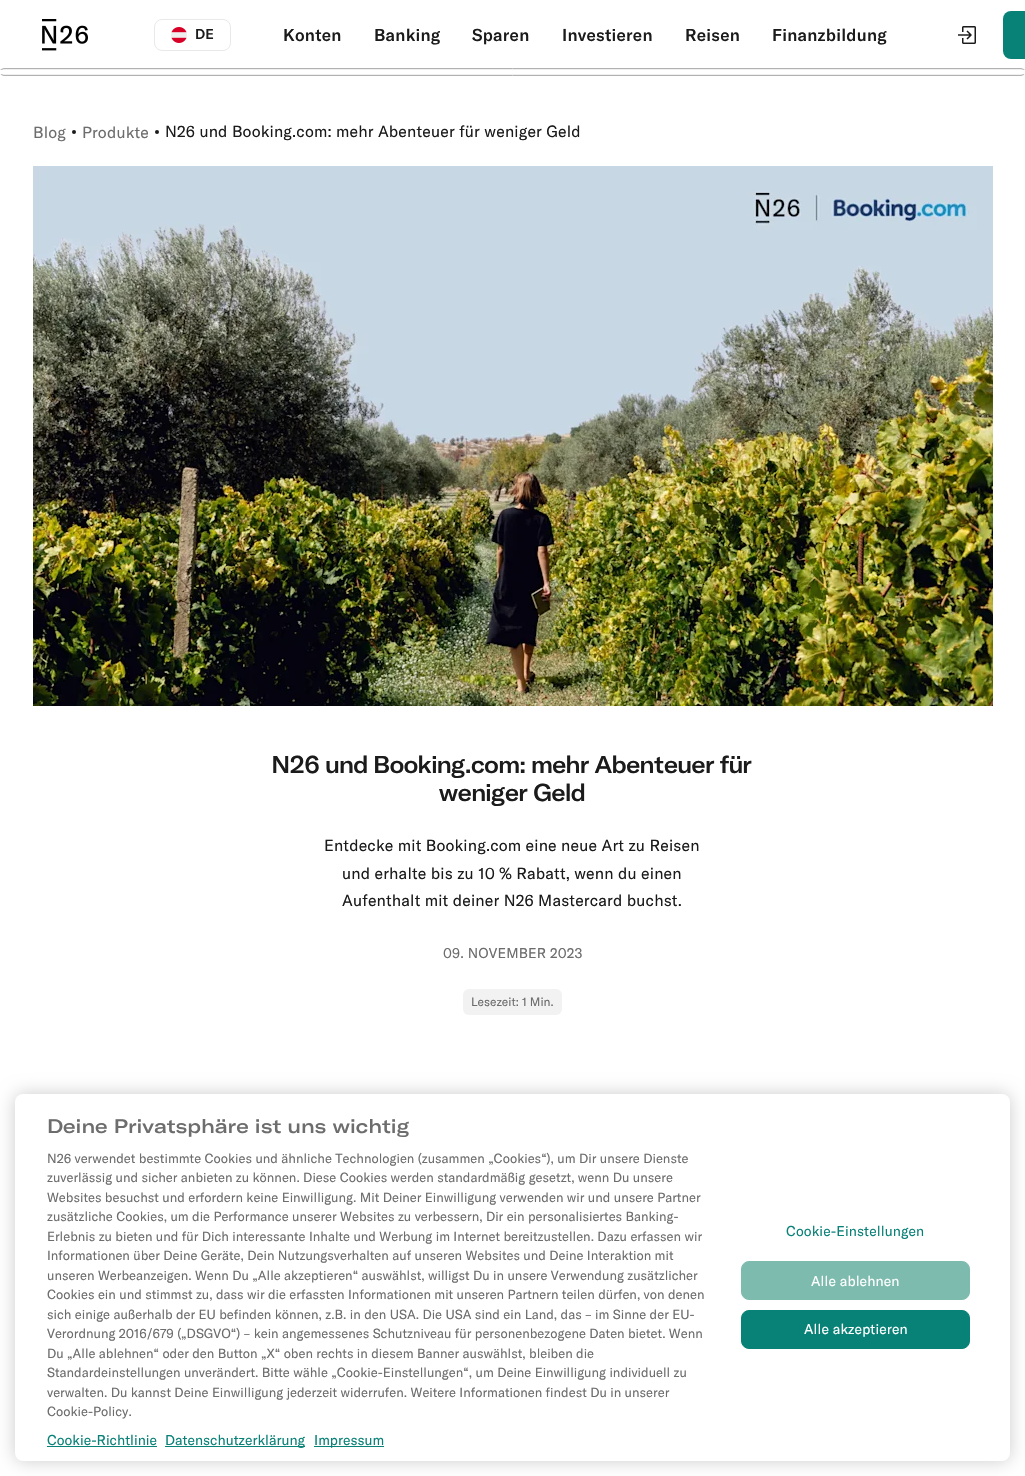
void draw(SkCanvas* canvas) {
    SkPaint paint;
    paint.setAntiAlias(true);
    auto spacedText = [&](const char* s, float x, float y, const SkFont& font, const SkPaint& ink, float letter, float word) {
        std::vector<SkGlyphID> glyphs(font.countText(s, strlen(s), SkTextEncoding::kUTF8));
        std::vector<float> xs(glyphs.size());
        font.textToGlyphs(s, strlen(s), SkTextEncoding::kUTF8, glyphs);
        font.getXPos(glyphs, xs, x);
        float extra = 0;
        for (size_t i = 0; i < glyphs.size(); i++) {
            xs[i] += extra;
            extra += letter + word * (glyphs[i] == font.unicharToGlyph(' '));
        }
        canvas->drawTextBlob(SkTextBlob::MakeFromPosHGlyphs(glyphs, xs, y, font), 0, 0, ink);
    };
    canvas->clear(0xFFFFFFFF);
    paint.setColor(0xFFE9E9E9);
    canvas->drawRect(SkRect::MakeXYWH(0, 69, 1025, 1), paint);
    canvas->drawImageRect(SkImages::DeferredFromEncodedData(SkData::MakeFromFileName("img1.png")), SkRect::MakeXYWH(42, 19, 46, 32), SkSamplingOptions());
    paint.setStyle(SkPaint::kStroke_Style);
    paint.setStrokeWidth(1);
    canvas->drawRoundRect(SkRect::MakeXYWH(154.5f, 19.5f, 76, 31), 7.5f, 7.5f, paint);
    canvas->drawImageRect(SkImages::DeferredFromEncodedData(SkData::MakeFromFileName("img2.png")), SkRect::MakeXYWH(171, 27, 16, 16), SkSamplingOptions());
    SkFont font1(fontMgr->matchFamilyStyle("GT America", SkFontStyle(500, SkFontStyle::kNormal_Width, SkFontStyle::kUpright_Slant)), 14);
    font1.setSubpixel(true);
    paint.setStyle(SkPaint::kFill_Style);
    paint.setColor(0xFF1B1B1B);
    canvas->drawString("DE", 195, 39, font1, paint);
    SkFont font2(fontMgr->matchFamilyStyle("GT America", SkFontStyle(500, SkFontStyle::kNormal_Width, SkFontStyle::kUpright_Slant)), 17);
    font2.setSubpixel(true);
    spacedText("Konten", 283, 41, font2, paint, 0.25f, 0);
    spacedText("Banking", 374, 41, font2, paint, 0.25f, 0);
    spacedText("Sparen", 472, 41, font2, paint, 0.25f, 0);
    spacedText("Investieren", 562, 41, font2, paint, 0.25f, 0);
    spacedText("Reisen", 685, 41, font2, paint, 0.25f, 0);
    spacedText("Finanzbildung", 772, 41, font2, paint, 0.25f, 0);
    canvas->drawImageRect(SkImages::DeferredFromEncodedData(SkData::MakeFromFileName("img3.png")), SkRect::MakeXYWH(958, 26, 18, 18), SkSamplingOptions());
    paint.setColor(0xFF088177);
    canvas->drawRoundRect(SkRect::MakeXYWH(1003, 11, 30, 48), 8, 8, paint);
    paint.setColor(0xFFEFEFEF);
    canvas->drawRoundRect(SkRect::MakeXYWH(0.5f, 68.5f, 1024, 7), 3.5f, 3.5f, paint);
    paint.setStyle(SkPaint::kStroke_Style);
    paint.setColor(0xFFB2B2B2);
    canvas->drawRoundRect(SkRect::MakeXYWH(0.5f, 68.5f, 1024, 7), 3.5f, 3.5f, paint);
    paint.setStyle(SkPaint::kFill_Style);
    paint.setColor(0xFFFFFFFF);
    canvas->drawRect(SkRect::MakeXYWH(0, 70, 1025, 4), paint);
    SkFont font3(fontMgr->matchFamilyStyle("GT America", SkFontStyle::Normal()), 16);
    font3.setSubpixel(true);
    paint.setColor(0xFF6D6D6D);
    spacedText("Blog", 33, 138, font3, paint, 0.15f, 0);
    paint.setColor(0xFF1B1B1B);
    canvas->drawCircle(74, 132, 2, paint);
    paint.setColor(0xFF6D6D6D);
    spacedText("Produkte", 82, 138, font3, paint, 0.15f, 0);
    paint.setColor(0xFF1B1B1B);
    canvas->drawCircle(157, 132, 2, paint);
    spacedText("N26 und Booking.com: mehr Abenteuer für weniger Geld", 165, 137, font3, paint, 0.15f, 0);
    canvas->drawImageRect(SkImages::DeferredFromEncodedData(SkData::MakeFromFileName("img4.png")), SkRect::MakeXYWH(33, 166, 960, 540), SkSamplingOptions());
    SkFont font4(fontMgr->matchFamilyStyle("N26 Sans", SkFontStyle(500, SkFontStyle::kNormal_Width, SkFontStyle::kUpright_Slant)), 24);
    font4.setSubpixel(true);
    spacedText("N26 und Booking.com: mehr Abenteuer für", 272, 773, font4, paint, 0.15f, 0);
    spacedText("weniger Geld", 439, 801, font4, paint, 0.15f, 0);
    spacedText("Entdecke mit Booking.com eine neue Art zu Reisen", 324, 851, font3, paint, 0.15f, 0);
    spacedText("und erhalte bis zu 10 % Rabatt, wenn du einen", 342, 879, font3, paint, 0.15f, 0);
    spacedText("Aufenthalt mit deiner N26 Mastercard buchst.", 342, 906, font3, paint, 0.15f, 0);
    SkFont font5(fontMgr->matchFamilyStyle("GT America", SkFontStyle::Normal()), 14);
    font5.setSubpixel(true);
    paint.setColor(0xFF6D6D6D);
    spacedText("09. NOVEMBER 2023", 443, 958, font5, paint, 0.15f, 0);
    paint.setColor(0xFFF2F2F2);
    canvas->drawRoundRect(SkRect::MakeXYWH(463, 989, 99, 26), 6, 6, paint);
    SkFont font6(fontMgr->matchFamilyStyle("GT America", SkFontStyle::Normal()), 12);
    font6.setSubpixel(true);
    paint.setColor(0xFF6D6D6D);
    canvas->drawString("Lesezeit: 1 Min.", 471, 1006, font6, paint);
    paint.setColor(0x33000000);
    paint.setMaskFilter(SkMaskFilter::MakeBlur(kNormal_SkBlurStyle, 9));
    canvas->drawRoundRect(SkRect::MakeXYWH(15, 1094, 995, 367), 8, 8, paint);
    paint.setMaskFilter(nullptr);
    paint.setColor(0xFFFFFFFF);
    canvas->drawRoundRect(SkRect::MakeXYWH(15, 1094, 995, 367), 8, 8, paint);
    SkFont font7(fontMgr->matchFamilyStyle("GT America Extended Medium", SkFontStyle(500, SkFontStyle::kNormal_Width, SkFontStyle::kUpright_Slant)), 19.25f);
    font7.setSubpixel(true);
    paint.setColor(0xFF6D6D6D);
    canvas->drawString("Deine Privatsphäre ist uns wichtig", 47, 1133, font7, paint);
    SkFont font8(fontMgr->matchFamilyStyle("GT America", SkFontStyle::Normal()), 13);
    font8.setSubpixel(true);
    canvas->drawString("N26 verwendet bestimmte Cookies und ähnliche Technologien (zusammen „Cookies“), um Dir unsere Dienste", 47, 1163, font8, paint);
    canvas->drawString("zuverlässig und sicher anbieten zu können. Diese Cookies werden standardmäßig gesetzt, wenn Du unsere", 47, 1182, font8, paint);
    canvas->drawString("Websites besuchst und erfordern keine Einwilligung. Mit Deiner Einwilligung verwenden wir und unsere Partner", 47, 1202, font8, paint);
    canvas->drawString("zusätzliche Cookies, um die Performance unserer Websites zu verbessern, Dir ein personalisiertes Banking-", 47, 1221, font8, paint);
    canvas->drawString("Erlebnis zu bieten und für Dich interessante Inhalte und Werbung im Internet bereitzustellen. Dazu erfassen wir", 47, 1241, font8, paint);
    canvas->drawString("Informationen über Deine Geräte, Dein Nutzungsverhalten auf unseren Websites und Deine Interaktion mit", 47, 1260, font8, paint);
    canvas->drawString("unseren Werbeanzeigen. Wenn Du „Alle akzeptieren“ auswählst, willigst Du in unsere Verwendung zusätzlicher", 47, 1280, font8, paint);
    canvas->drawString("Cookies ein und stimmst zu, dass wir die erfassten Informationen mit unseren Partnern teilen dürfen, von denen", 47, 1299, font8, paint);
    canvas->drawString("sich einige außerhalb der EU befinden können, z.B. in den USA. Die USA sind ein Land, das – im Sinne der EU-", 47, 1319, font8, paint);
    canvas->drawString("Verordnung 2016/679 („DSGVO“) – kein angemessenes Schutzniveau für personenbezogene Daten bietet. Wenn", 47, 1338, font8, paint);
    canvas->drawString("Du „Alle ablehnen“ oder den Button „X“ oben rechts in diesem Banner auswählst, bleiben die", 47, 1358, font8, paint);
    canvas->drawString("Standardeinstellungen unverändert. Bitte wähle „Cookie-Einstellungen“, um Deine Einwilligung individuell zu", 47, 1377, font8, paint);
    canvas->drawString("verwalten. Du kannst Deine Einwilligung jederzeit widerrufen. Weitere Informationen findest Du in unserer", 47, 1397, font8, paint);
    canvas->drawString("Cookie-Policy.", 47, 1416, font8, paint);
    paint.setColor(0xFF088177);
    canvas->drawString("Cookie-Richtlinie", 47, 1445, font5, paint);
    canvas->drawRect(SkRect::MakeXYWH(47, 1446, 110, 1), paint);
    canvas->drawRect(SkRect::MakeXYWH(165, 1446, 140, 1), paint);
    canvas->drawString("Datenschutzerklärung", 165, 1445, font5, paint);
    canvas->drawRect(SkRect::MakeXYWH(314, 1446, 70, 1), paint);
    canvas->drawString("Impressum", 314, 1445, font5, paint);
    spacedText("Cookie-Einstellungen", 786, 1236, font5, paint, 0.1f, 0);
    paint.setColor(0xFF7EBBAF);
    canvas->drawRoundRect(SkRect::MakeXYWH(741.5f, 1261.5f, 228, 38), 7.5f, 7.5f, paint);
    paint.setStyle(SkPaint::kStroke_Style);
    canvas->drawRoundRect(SkRect::MakeXYWH(741.5f, 1261.5f, 228, 38), 7.5f, 7.5f, paint);
    paint.setStyle(SkPaint::kFill_Style);
    paint.setColor(0xFFFFFFFF);
    spacedText("Alle ablehnen", 811, 1286, font5, paint, 0.1f, 0);
    paint.setColor(0xFF088177);
    canvas->drawRoundRect(SkRect::MakeXYWH(741.5f, 1310.5f, 228, 38), 7.5f, 7.5f, paint);
    paint.setStyle(SkPaint::kStroke_Style);
    canvas->drawRoundRect(SkRect::MakeXYWH(741.5f, 1310.5f, 228, 38), 7.5f, 7.5f, paint);
    paint.setStyle(SkPaint::kFill_Style);
    paint.setColor(0xFFFFFFFF);
    spacedText("Alle akzeptieren", 804, 1334, font5, paint, 0.1f, 0);
}
